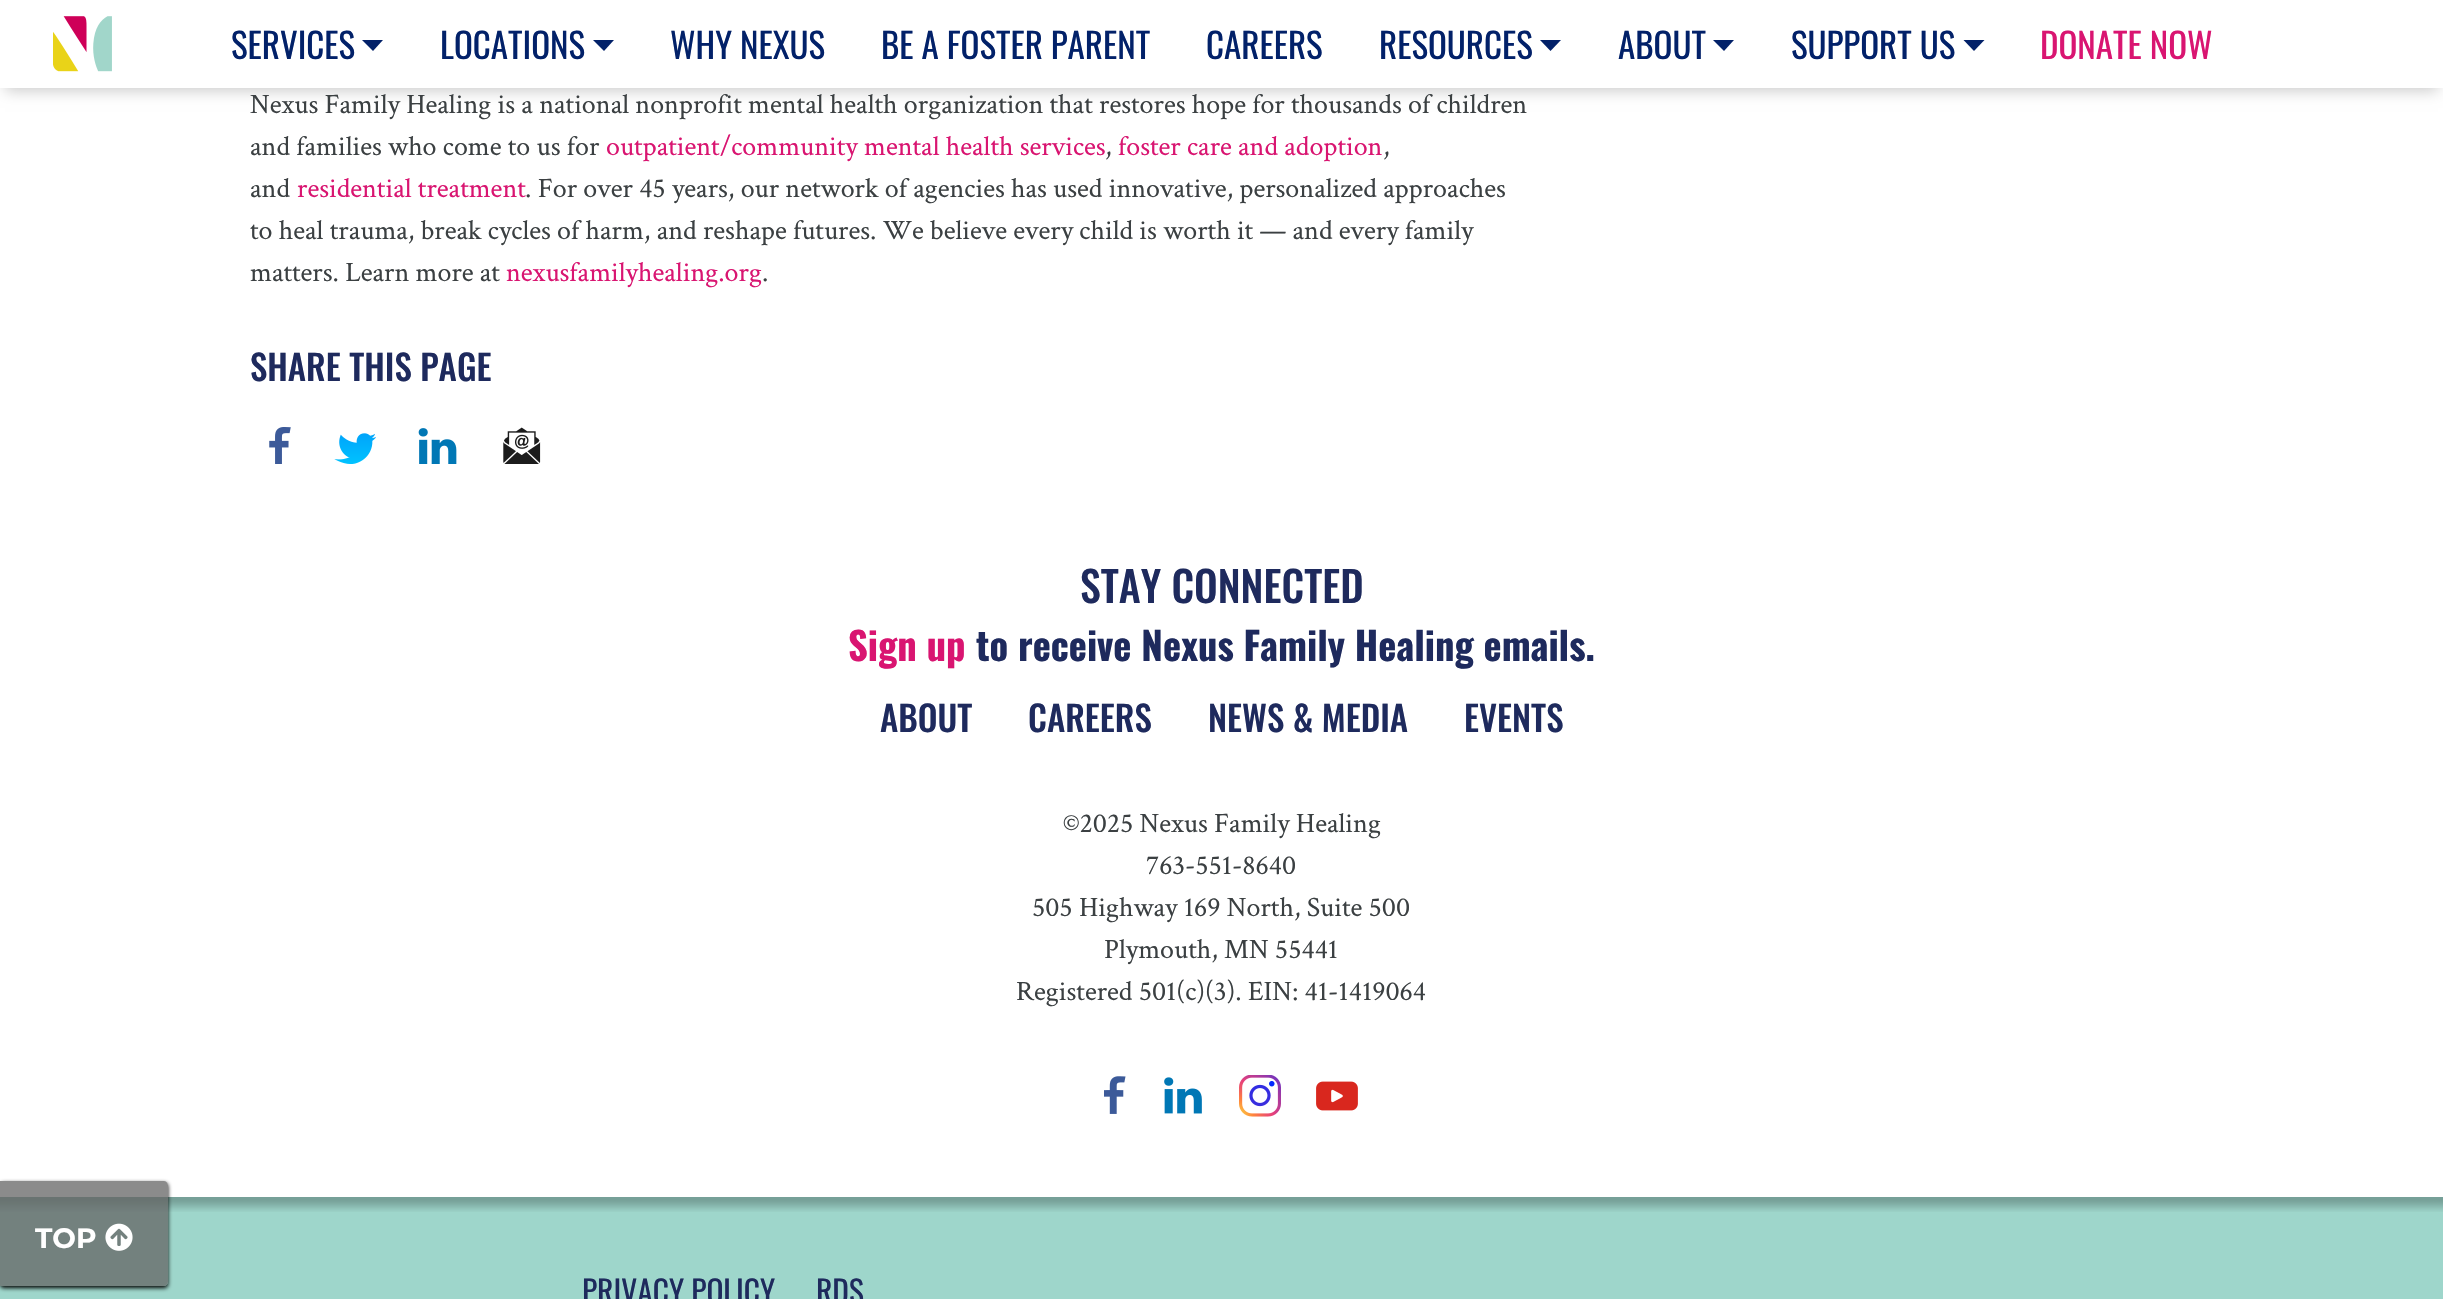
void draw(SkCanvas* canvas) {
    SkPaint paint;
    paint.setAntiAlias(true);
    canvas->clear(0xFF9ED6CB);
    paint.setColor(0xFFFFFFFF);
    canvas->drawRect(SkRect::MakeXYWH(0, 88, 2443, 1109), paint);
    canvas->drawImageRect(SkImages::DeferredFromEncodedData(SkData::MakeFromFileName("img11.png")), SkRect::MakeXYWH(0, 1197, 2443, 15), SkSamplingOptions());
    canvas->save();
    canvas->clipPath(SkPathBuilder(SkPathFillType::kEvenOdd).moveTo(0, 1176).lineTo(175, 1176).lineTo(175, 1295).lineTo(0, 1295).close().moveTo(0, 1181).lineTo(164, 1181).cubicTo(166, 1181, 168, 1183, 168, 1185).lineTo(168, 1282).cubicTo(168, 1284, 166, 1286, 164, 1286).lineTo(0, 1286).close().detach(), true);
    paint.setColor(0xFF000000);
    paint.setMaskFilter(SkMaskFilter::MakeBlur(kNormal_SkBlurStyle, 2));
    canvas->drawRoundRect(SkRect::MakeXYWH(0, 1183, 168, 105), 4, 4, paint);
    paint.setMaskFilter(nullptr);
    canvas->restore();
    paint.setColor(0xBF646464);
    canvas->drawPath(SkPathBuilder().moveTo(0, 1181).lineTo(164, 1181).cubicTo(166, 1181, 168, 1183, 168, 1185).lineTo(168, 1282).cubicTo(168, 1284, 166, 1286, 164, 1286).lineTo(0, 1286).close().detach(), paint);
    SkFont font1(fontMgr->matchFamilyStyle("Montserrat", SkFontStyle::Bold()), 28);
    font1.setSubpixel(true);
    paint.setColor(0xFFFFFFFF);
    canvas->drawString("TOP", 35, 1248, font1, paint);
    canvas->drawImageRect(SkImages::DeferredFromEncodedData(SkData::MakeFromFileName("img1.png")), SkRect::MakeXYWH(105, 1223, 28, 28), SkSamplingOptions());
    paint.setColor(0x33000000);
    paint.setMaskFilter(SkMaskFilter::MakeBlur(kNormal_SkBlurStyle, 7));
    canvas->drawRect(SkRect::MakeXYWH(5, 14, 2433, 77), paint);
    paint.setMaskFilter(nullptr);
    paint.setColor(0xFFFFFFFF);
    canvas->drawRect(SkRect::MakeXYWH(0, 0, 2443, 88), paint);
    canvas->drawImageRect(SkImages::DeferredFromEncodedData(SkData::MakeFromFileName("img2.png")), SkRect::MakeXYWH(53, 16, 59, 56), SkSamplingOptions());
    SkFont font2(fontMgr->matchFamilyStyle("Oswald", SkFontStyle::Normal()), 35);
    font2.setSubpixel(true);
    paint.setColor(0xFF022169);
    canvas->drawString("SERVICES", 231, 59, font2, paint);
    canvas->drawPath(SkPathBuilder().moveTo(362, 40).lineTo(383, 40).lineTo(373, 51).close().detach(), paint);
    canvas->drawString("LOCATIONS", 440, 59, font2, paint);
    canvas->drawPath(SkPathBuilder().moveTo(593, 40).lineTo(614, 40).lineTo(604, 51).close().detach(), paint);
    canvas->drawString("WHY NEXUS", 670, 59, font2, paint);
    canvas->drawString("BE A FOSTER PARENT", 881, 59, font2, paint);
    canvas->drawString("CAREERS", 1206, 59, font2, paint);
    canvas->drawString("RESOURCES", 1379, 59, font2, paint);
    canvas->drawPath(SkPathBuilder().moveTo(1540, 40).lineTo(1561, 40).lineTo(1550.5f, 51).close().detach(), paint);
    canvas->drawString("ABOUT", 1618, 59, font2, paint);
    canvas->drawPath(SkPathBuilder().moveTo(1713, 40).lineTo(1734, 40).lineTo(1724, 51).close().detach(), paint);
    canvas->drawString("SUPPORT US", 1791, 59, font2, paint);
    canvas->drawPath(SkPathBuilder().moveTo(1963.5f, 40).lineTo(1984.5f, 40).lineTo(1974, 51).close().detach(), paint);
    paint.setColor(0xFFD91571);
    canvas->drawString("DONATE NOW", 2040, 59, font2, paint);
    SkFont font3(fontMgr->matchFamilyStyle("Crimson Text", SkFontStyle::Normal()), 28);
    font3.setSubpixel(true);
    paint.setColor(0xFF3B4042);
    canvas->drawString("Nexus Family Healing is a national nonprofit mental health organization that restores hope for thousands of children", 250, 113, font3, paint);
    canvas->drawString("and families who come to us for", 250, 155, font3, paint);
    paint.setColor(0xFFD91571);
    canvas->drawString("outpatient/community mental health services", 606, 155, font3, paint);
    paint.setColor(0xFF3B4042);
    canvas->drawString(",", 1105, 155, font3, paint);
    paint.setColor(0xFFD91571);
    canvas->drawString("foster care and adoption", 1118, 155, font3, paint);
    paint.setColor(0xFF3B4042);
    canvas->drawString(",", 1383, 155, font3, paint);
    canvas->drawString("and", 250, 197, font3, paint);
    paint.setColor(0xFFD91571);
    canvas->drawString("residential treatment", 297, 197, font3, paint);
    paint.setColor(0xFF3B4042);
    canvas->drawString(". For over 45 years, our network of agencies has used innovative, personalized approaches", 525, 197, font3, paint);
    canvas->drawString("to heal trauma, break cycles of harm, and reshape futures. We believe every child is worth it — and every family", 250, 239, font3, paint);
    canvas->drawString("matters. Learn more at", 250, 281, font3, paint);
    paint.setColor(0xFFD91571);
    canvas->drawString("nexusfamilyhealing.org", 506, 281, font3, paint);
    paint.setColor(0xFF3B4042);
    canvas->drawString(".", 762, 281, font3, paint);
    SkFont font4(fontMgr->matchFamilyStyle("Oswald", SkFontStyle(500, SkFontStyle::kNormal_Width, SkFontStyle::kUpright_Slant)), 35);
    font4.setSubpixel(true);
    paint.setColor(0xFF1E2A5D);
    canvas->drawString("SHARE THIS PAGE", 250, 381, font4, paint);
    canvas->drawImageRect(SkImages::DeferredFromEncodedData(SkData::MakeFromFileName("img3.png")), SkRect::MakeXYWH(269, 427, 22, 37), SkSamplingOptions());
    canvas->drawImageRect(SkImages::DeferredFromEncodedData(SkData::MakeFromFileName("img4.png")), SkRect::MakeXYWH(334, 433, 42, 31), SkSamplingOptions());
    canvas->drawImageRect(SkImages::DeferredFromEncodedData(SkData::MakeFromFileName("img5.png")), SkRect::MakeXYWH(418, 428, 39, 36), SkSamplingOptions());
    canvas->drawImageRect(SkImages::DeferredFromEncodedData(SkData::MakeFromFileName("img6.png")), SkRect::MakeXYWH(503, 427, 38, 37), SkSamplingOptions());
    SkFont font5(fontMgr->matchFamilyStyle("Oswald", SkFontStyle(500, SkFontStyle::kNormal_Width, SkFontStyle::kUpright_Slant)), 42);
    font5.setSubpixel(true);
    canvas->drawString("STAY CONNECTED", 1080, 603, font5, paint);
    SkFont font6(fontMgr->matchFamilyStyle("Oswald", SkFontStyle::Bold()), 38.5f);
    font6.setSubpixel(true);
    paint.setColor(0xFFD91571);
    canvas->drawString("Sign up", 848, 661, font6, paint);
    paint.setColor(0xFF1E2A5D);
    canvas->drawString("to receive Nexus Family Healing emails.", 976, 661, font6, paint);
    canvas->drawString("ABOUT", 880, 732, font4, paint);
    canvas->drawString("CAREERS", 1028, 732, font4, paint);
    canvas->drawString("NEWS & MEDIA", 1208, 732, font4, paint);
    canvas->drawString("EVENTS", 1464, 732, font4, paint);
    paint.setColor(0xFF3B4042);
    canvas->drawString("©2025 Nexus Family Healing", 1063, 832, font3, paint);
    canvas->drawString("763-551-8640", 1146, 874, font3, paint);
    canvas->drawString("505 Highway 169 North, Suite 500", 1032, 916, font3, paint);
    canvas->drawString("Plymouth, MN 55441", 1104, 958, font3, paint);
    canvas->drawString("Registered 501(c)(3). EIN: 41-1419064", 1016, 1000, font3, paint);
    canvas->drawImageRect(SkImages::DeferredFromEncodedData(SkData::MakeFromFileName("img7.png")), SkRect::MakeXYWH(1104, 1076, 22, 38), SkSamplingOptions());
    canvas->drawImageRect(SkImages::DeferredFromEncodedData(SkData::MakeFromFileName("img8.png")), SkRect::MakeXYWH(1164, 1077, 38, 37), SkSamplingOptions());
    canvas->drawImageRect(SkImages::DeferredFromEncodedData(SkData::MakeFromFileName("img9.png")), SkRect::MakeXYWH(1239, 1075, 42, 42), SkSamplingOptions());
    canvas->drawImageRect(SkImages::DeferredFromEncodedData(SkData::MakeFromFileName("img10.png")), SkRect::MakeXYWH(1316, 1081, 42, 30), SkSamplingOptions());
    SkFont font7(fontMgr->matchFamilyStyle("Oswald", SkFontStyle::Normal()), 31.5f);
    font7.setSubpixel(true);
    paint.setColor(0xFF1E2A5D);
    canvas->drawString("PRIVACY POLICY", 582, 1304, font7, paint);
    canvas->drawString("RDS", 816, 1304, font7, paint);
}
